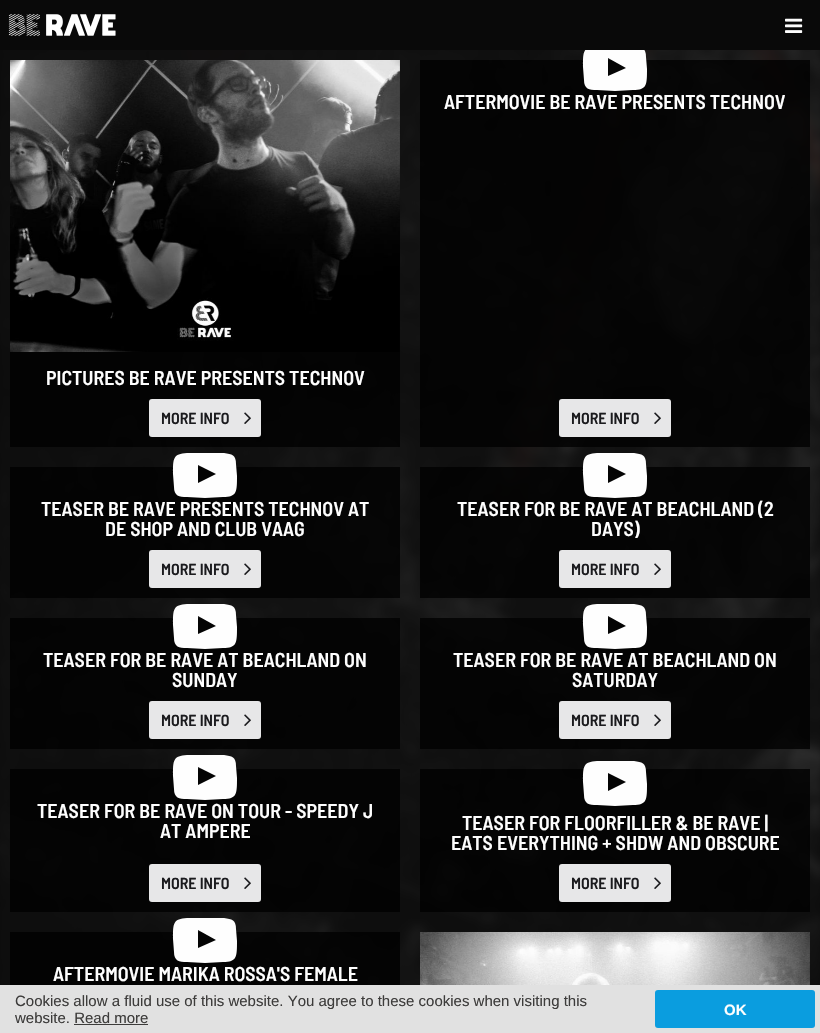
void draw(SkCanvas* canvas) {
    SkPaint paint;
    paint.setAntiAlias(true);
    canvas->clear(0xFF090909);
    canvas->drawImageRect(SkImages::DeferredFromEncodedData(SkData::MakeFromFileName("img3.png")), SkRect::MakeXYWH(0, 50, 820, 935), SkSamplingOptions());
    paint.setColor(0xCC000000);
    canvas->drawRect(SkRect::MakeXYWH(420, 60, 390, 387), paint);
    paint.setColor(0xFFFEFEFE);
    canvas->drawPath(SkPathBuilder().moveTo(608, 76).lineTo(626, 68).lineTo(608, 58).close().moveTo(615, 46).lineTo(634, 46).cubicTo(642, 47, 646, 48, 646, 57).lineTo(647, 69).cubicTo(647, 85, 647, 90, 633, 90).lineTo(615, 91).lineTo(597, 90).cubicTo(589, 90, 584, 89, 584, 80).lineTo(583, 67).cubicTo(583, 51, 583, 47, 597, 46).close().detach(), paint);
    paint.setColor(0xFF090909);
    canvas->drawRect(SkRect::MakeXYWH(585, 46, 60, 4), paint);
    canvas->drawImageRect(SkImages::DeferredFromEncodedData(SkData::MakeFromFileName("img1.png")), SkRect::MakeXYWH(8, 14, 108, 22), SkSamplingOptions());
    canvas->drawImageRect(SkImages::DeferredFromEncodedData(SkData::MakeFromFileName("img2.png")), SkRect::MakeXYWH(785, 18, 18, 15), SkSamplingOptions());
    paint.setColor(0xCC000000);
    canvas->drawRect(SkRect::MakeXYWH(10, 60, 390, 387), paint);
    canvas->drawImageRect(SkImages::DeferredFromEncodedData(SkData::MakeFromFileName("img4.png")), SkRect::MakeXYWH(10, 60, 390, 292), SkSamplingOptions());
    SkFont font1(fontMgr->matchFamilyStyle("Barlow Semi Condensed", SkFontStyle(600, SkFontStyle::kNormal_Width, SkFontStyle::kUpright_Slant)), 20);
    font1.setSubpixel(true);
    paint.setColor(0xFFFEFEFE);
    canvas->drawString("PICTURES BE RAVE PRESENTS TECHNOV", 46, 385, font1, paint);
    paint.setColor(0xFFE7E7E8);
    canvas->drawRoundRect(SkRect::MakeXYWH(149, 399, 112, 38), 3, 3, paint);
    SkFont font2(fontMgr->matchFamilyStyle("Barlow Semi Condensed", SkFontStyle(600, SkFontStyle::kNormal_Width, SkFontStyle::kUpright_Slant)), 16);
    font2.setSubpixel(true);
    paint.setColor(0xFF1B1B1E);
    canvas->drawString("MORE INFO", 161, 424, font2, paint);
    canvas->drawImageRect(SkImages::DeferredFromEncodedData(SkData::MakeFromFileName("img5.png")), SkRect::MakeXYWH(244, 412, 7, 12), SkSamplingOptions());
    paint.setColor(0xFFFEFEFE);
    canvas->drawString("AFTERMOVIE BE RAVE PRESENTS TECHNOV", 444, 109, font1, paint);
    paint.setColor(0xFFE7E7E8);
    canvas->drawRoundRect(SkRect::MakeXYWH(559, 399, 112, 38), 3, 3, paint);
    paint.setColor(0xFF1B1B1E);
    canvas->drawString("MORE INFO", 571, 424, font2, paint);
    canvas->drawImageRect(SkImages::DeferredFromEncodedData(SkData::MakeFromFileName("img5.png")), SkRect::MakeXYWH(654, 412, 7, 12), SkSamplingOptions());
    paint.setColor(0xCC000000);
    canvas->drawRect(SkRect::MakeXYWH(10, 467, 390, 131), paint);
    paint.setColor(0xFFFEFEFE);
    canvas->drawPath(SkPathBuilder().moveTo(198, 483).lineTo(216, 474).lineTo(198, 465).close().moveTo(205, 453).lineTo(224, 453).cubicTo(232, 454, 236, 455, 236, 464).lineTo(237, 476).cubicTo(237, 492, 237, 497, 223, 497).lineTo(205, 498).lineTo(187, 497).cubicTo(179, 497, 174, 496, 174, 487).lineTo(173, 474).cubicTo(173, 458, 173, 454, 187, 453).close().detach(), paint);
    canvas->drawString("TEASER BE RAVE PRESENTS TECHNOV AT", 41, 516, font1, paint);
    canvas->drawString("DE SHOP AND CLUB VAAG", 105, 536, font1, paint);
    paint.setColor(0xFFE7E7E8);
    canvas->drawRoundRect(SkRect::MakeXYWH(149, 550, 112, 38), 3, 3, paint);
    paint.setColor(0xFF1B1B1E);
    canvas->drawString("MORE INFO", 161, 575, font2, paint);
    canvas->drawImageRect(SkImages::DeferredFromEncodedData(SkData::MakeFromFileName("img5.png")), SkRect::MakeXYWH(244, 563, 7, 12), SkSamplingOptions());
    paint.setColor(0xCC000000);
    canvas->drawRect(SkRect::MakeXYWH(420, 467, 390, 131), paint);
    paint.setColor(0xFFFEFEFE);
    canvas->drawPath(SkPathBuilder().moveTo(608, 483).lineTo(626, 474).lineTo(608, 465).close().moveTo(615, 453).lineTo(634, 453).cubicTo(642, 454, 646, 455, 646, 464).lineTo(647, 476).cubicTo(647, 492, 647, 497, 633, 497).lineTo(615, 498).lineTo(597, 497).cubicTo(589, 497, 584, 496, 584, 487).lineTo(583, 474).cubicTo(583, 458, 583, 454, 597, 453).close().detach(), paint);
    canvas->drawString("TEASER FOR BE RAVE AT BEACHLAND (2", 457, 516, font1, paint);
    canvas->drawString("DAYS)", 591, 536, font1, paint);
    paint.setColor(0xFFE7E7E8);
    canvas->drawRoundRect(SkRect::MakeXYWH(559, 550, 112, 38), 3, 3, paint);
    paint.setColor(0xFF1B1B1E);
    canvas->drawString("MORE INFO", 571, 575, font2, paint);
    canvas->drawImageRect(SkImages::DeferredFromEncodedData(SkData::MakeFromFileName("img5.png")), SkRect::MakeXYWH(654, 563, 7, 12), SkSamplingOptions());
    paint.setColor(0xCC000000);
    canvas->drawRect(SkRect::MakeXYWH(10, 618, 390, 131), paint);
    paint.setColor(0xFFFEFEFE);
    canvas->drawPath(SkPathBuilder().moveTo(198, 634).lineTo(216, 626).lineTo(198, 616).close().moveTo(205, 604).lineTo(224, 604).cubicTo(232, 605, 236, 606, 236, 615).lineTo(237, 627).cubicTo(237, 643, 237, 648, 223, 648).lineTo(205, 649).lineTo(187, 648).cubicTo(179, 648, 174, 647, 174, 638).lineTo(173, 625).cubicTo(173, 609, 173, 605, 187, 604).close().detach(), paint);
    canvas->drawString("TEASER FOR BE RAVE AT BEACHLAND ON", 43, 667, font1, paint);
    canvas->drawString("SUNDAY", 172, 687, font1, paint);
    paint.setColor(0xFFE7E7E8);
    canvas->drawRoundRect(SkRect::MakeXYWH(149, 701, 112, 38), 3, 3, paint);
    paint.setColor(0xFF1B1B1E);
    canvas->drawString("MORE INFO", 161, 726, font2, paint);
    canvas->drawImageRect(SkImages::DeferredFromEncodedData(SkData::MakeFromFileName("img5.png")), SkRect::MakeXYWH(244, 714, 7, 12), SkSamplingOptions());
    paint.setColor(0xCC000000);
    canvas->drawRect(SkRect::MakeXYWH(420, 618, 390, 131), paint);
    paint.setColor(0xFFFEFEFE);
    canvas->drawPath(SkPathBuilder().moveTo(608, 634).lineTo(626, 626).lineTo(608, 616).close().moveTo(615, 604).lineTo(634, 604).cubicTo(642, 605, 646, 606, 646, 615).lineTo(647, 627).cubicTo(647, 643, 647, 648, 633, 648).lineTo(615, 649).lineTo(597, 648).cubicTo(589, 648, 584, 647, 584, 638).lineTo(583, 625).cubicTo(583, 609, 583, 605, 597, 604).close().detach(), paint);
    canvas->drawString("TEASER FOR BE RAVE AT BEACHLAND ON", 453, 667, font1, paint);
    canvas->drawString("SATURDAY", 572, 687, font1, paint);
    paint.setColor(0xFFE7E7E8);
    canvas->drawRoundRect(SkRect::MakeXYWH(559, 701, 112, 38), 3, 3, paint);
    paint.setColor(0xFF1B1B1E);
    canvas->drawString("MORE INFO", 571, 726, font2, paint);
    canvas->drawImageRect(SkImages::DeferredFromEncodedData(SkData::MakeFromFileName("img5.png")), SkRect::MakeXYWH(654, 714, 7, 12), SkSamplingOptions());
    paint.setColor(0xCC000000);
    canvas->drawRect(SkRect::MakeXYWH(10, 769, 390, 143), paint);
    paint.setColor(0xFFFEFEFE);
    canvas->drawPath(SkPathBuilder().moveTo(198, 785).lineTo(216, 776).lineTo(198, 767).close().moveTo(205, 755).lineTo(224, 755).cubicTo(232, 756, 236, 757, 236, 766).lineTo(237, 778).cubicTo(237, 794, 237, 799, 223, 799).lineTo(205, 800).lineTo(187, 799).cubicTo(179, 799, 174, 798, 174, 789).lineTo(173, 776).cubicTo(173, 760, 173, 756, 187, 755).close().detach(), paint);
    canvas->drawString("TEASER FOR BE RAVE ON TOUR - SPEEDY J", 37, 818, font1, paint);
    canvas->drawString("AT AMPERE", 160, 838, font1, paint);
    paint.setColor(0xFFE7E7E8);
    canvas->drawRoundRect(SkRect::MakeXYWH(149, 864, 112, 38), 3, 3, paint);
    paint.setColor(0xFF1B1B1E);
    canvas->drawString("MORE INFO", 161, 889, font2, paint);
    canvas->drawImageRect(SkImages::DeferredFromEncodedData(SkData::MakeFromFileName("img5.png")), SkRect::MakeXYWH(244, 877, 7, 12), SkSamplingOptions());
    paint.setColor(0xCC000000);
    canvas->drawRect(SkRect::MakeXYWH(420, 769, 390, 143), paint);
    paint.setColor(0xFFFEFEFE);
    canvas->drawPath(SkPathBuilder().moveTo(608, 791).lineTo(626, 782).lineTo(608, 773).close().moveTo(615, 761).lineTo(634, 761).cubicTo(642, 762, 646, 763, 646, 772).lineTo(647, 784).cubicTo(647, 800, 647, 805, 633, 805).lineTo(615, 806).lineTo(597, 805).cubicTo(589, 805, 584, 804, 584, 795).lineTo(583, 782).cubicTo(583, 766, 583, 762, 597, 761).close().detach(), paint);
    canvas->drawString("TEASER FOR FLOORFILLER & BE RAVE |", 462, 830, font1, paint);
    canvas->drawString("EATS EVERYTHING + SHDW AND OBSCURE", 451, 850, font1, paint);
    paint.setColor(0xFFE7E7E8);
    canvas->drawRoundRect(SkRect::MakeXYWH(559, 864, 112, 38), 3, 3, paint);
    paint.setColor(0xFF1B1B1E);
    canvas->drawString("MORE INFO", 571, 889, font2, paint);
    canvas->drawImageRect(SkImages::DeferredFromEncodedData(SkData::MakeFromFileName("img5.png")), SkRect::MakeXYWH(654, 877, 7, 12), SkSamplingOptions());
    paint.setColor(0xCC000000);
    canvas->drawRect(SkRect::MakeXYWH(10, 932, 390, 53), paint);
    paint.setColor(0xFFFEFEFE);
    canvas->drawPath(SkPathBuilder().moveTo(198, 948).lineTo(216, 940).lineTo(198, 930).close().moveTo(205, 918).lineTo(224, 918).cubicTo(232, 919, 236, 920, 236, 929).lineTo(237, 941).cubicTo(237, 957, 237, 962, 223, 962).lineTo(205, 963).lineTo(187, 962).cubicTo(179, 962, 174, 961, 174, 952).lineTo(173, 939).cubicTo(173, 923, 173, 919, 187, 918).close().detach(), paint);
    canvas->drawString("AFTERMOVIE MARIKA ROSSA'S FEMALE", 53, 981, font1, paint);
    canvas->drawImageRect(SkImages::DeferredFromEncodedData(SkData::MakeFromFileName("img6.png")), SkRect::MakeXYWH(420, 932, 390, 53), SkSamplingOptions());
    paint.setColor(0xFFE1E1E1);
    canvas->drawRect(SkRect::MakeXYWH(0, 985, 820, 48), paint);
    SkFont font3(fontMgr->matchFamilyStyle("Liberation Sans", SkFontStyle::Normal()), 15);
    font3.setSubpixel(true);
    paint.setColor(0xFF3D3C3B);
    canvas->drawString("Cookies allow a fluid use of this website. You agree to these cookies when visiting this", 15, 1006, font3, paint);
    canvas->drawString("website. Read more", 15, 1023, font3, paint);
    canvas->drawRect(SkRect::MakeXYWH(74, 1024, 74, 1), paint);
    paint.setColor(0xFF0A9DDF);
    canvas->drawRoundRect(SkRect::MakeXYWH(655, 990, 160, 38), 3, 3, paint);
    SkFont font4(fontMgr->matchFamilyStyle("Liberation Sans", SkFontStyle::Bold()), 15);
    font4.setSubpixel(true);
    paint.setColor(0xFFFEFEFE);
    canvas->drawString("OK", 724, 1015, font4, paint);
}
